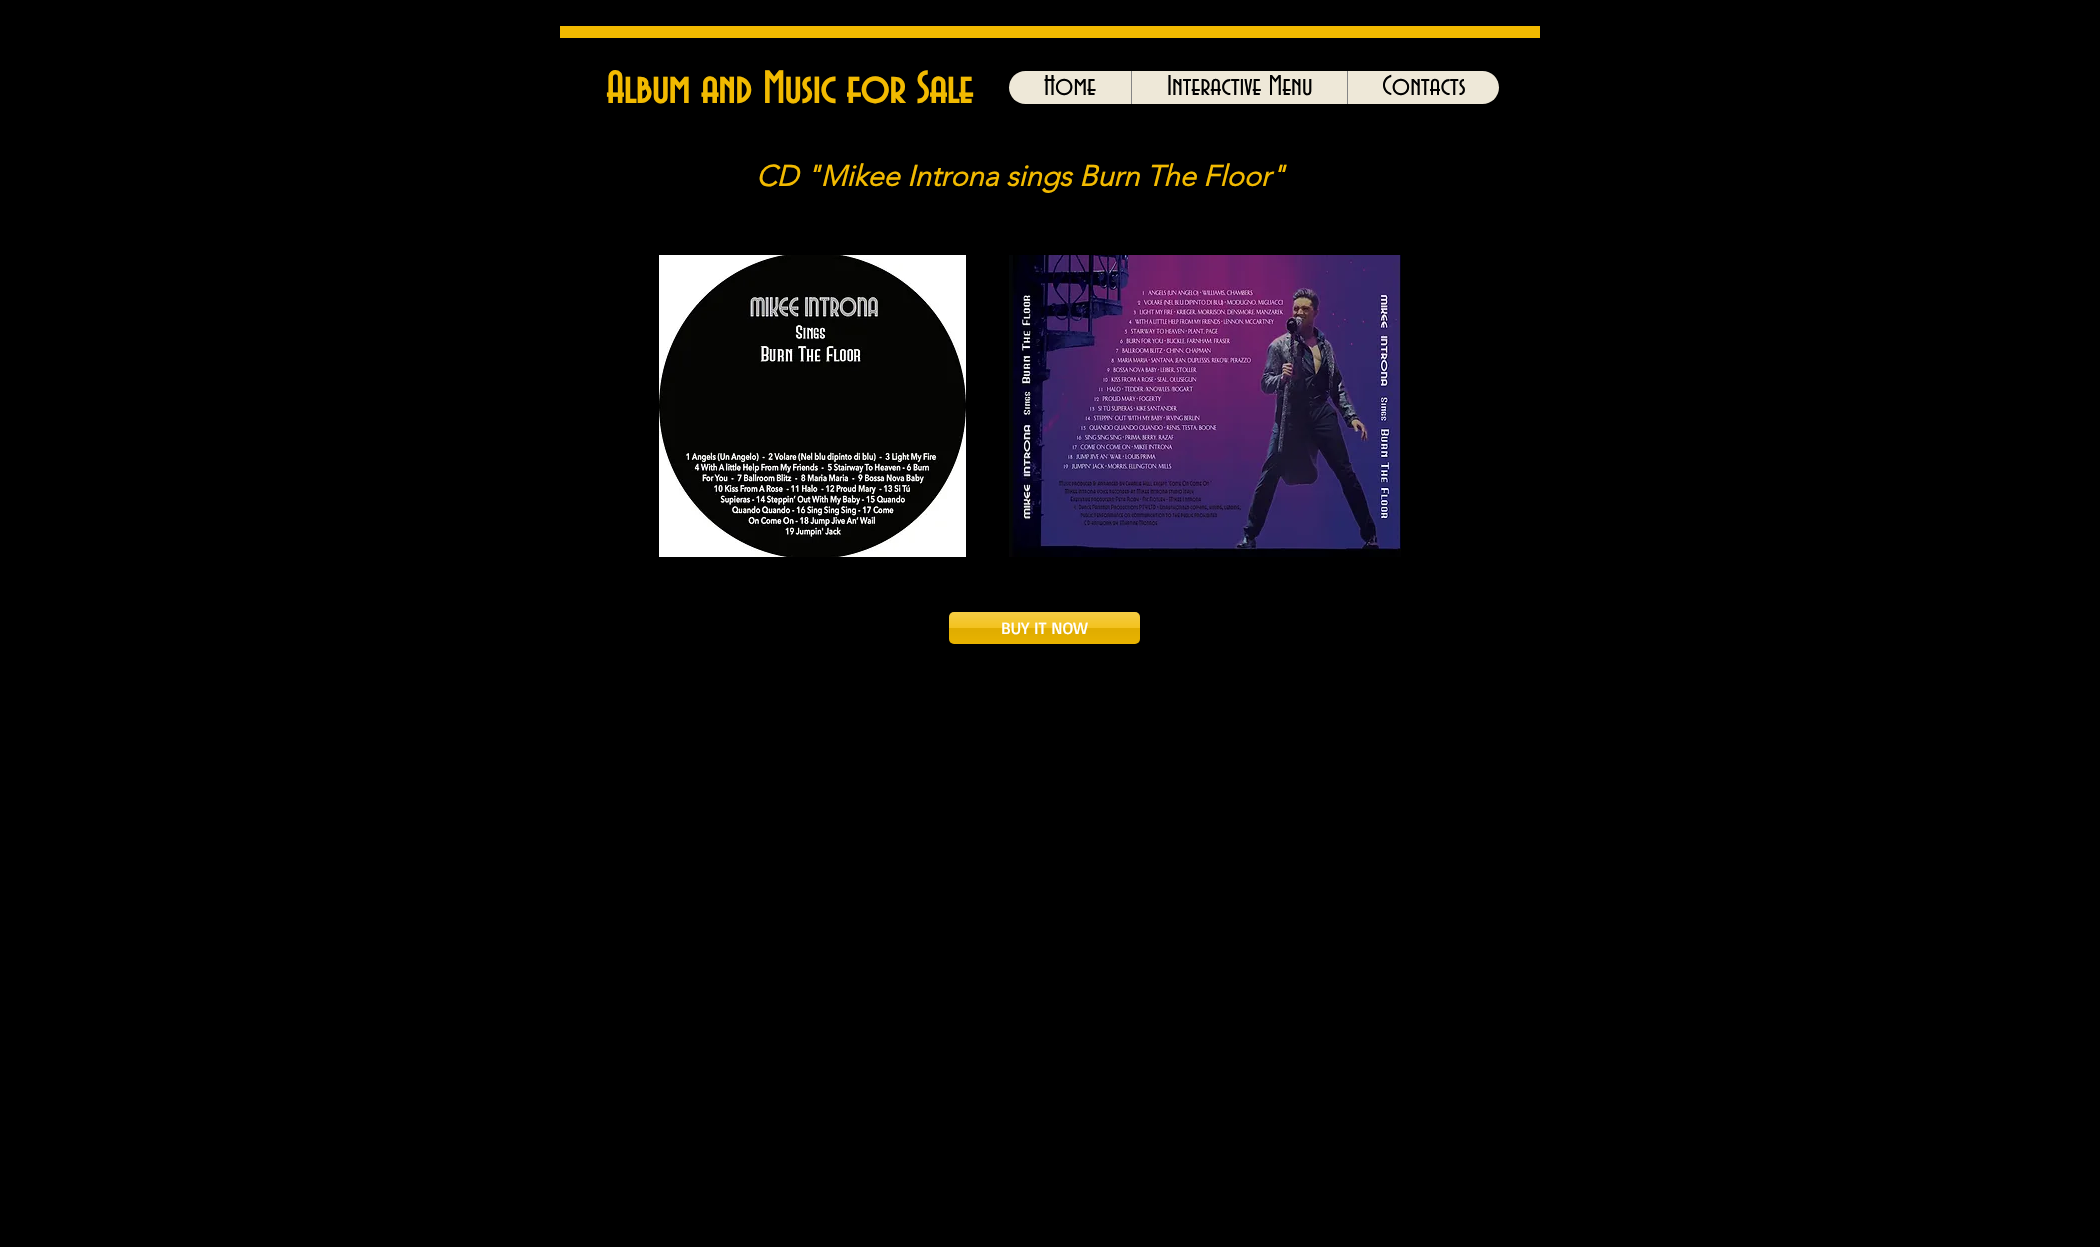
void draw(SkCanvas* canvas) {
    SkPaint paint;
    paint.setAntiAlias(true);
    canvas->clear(0xFF000000);
    paint.setColor(0xFFF2BA00);
    canvas->drawRect(SkRect::MakeXYWH(560, 26, 980, 12), paint);
    SkFont font1(fontMgr->matchFamilyStyle("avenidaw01", SkFontStyle::Bold()), 47);
    font1.setSubpixel(true);
    canvas->drawString("Album and Music for Sale", 606, 103, font1, paint);
    paint.setColor(0xFFEEE8D8);
    canvas->drawRoundRect(SkRect::MakeXYWH(1009, 71, 490, 33), 16.5f, 16.5f, paint);
    SkFont font2(fontMgr->matchFamilyStyle("avenidaw01", SkFontStyle::Normal()), 30);
    font2.setSubpixel(true);
    paint.setColor(0xFF000000);
    canvas->drawString("Home", 1044, 95, font2, paint);
    paint.setColor(0xFF858585);
    canvas->drawRect(SkRect::MakeXYWH(1131, 71, 1, 33), paint);
    paint.setColor(0xFF000000);
    canvas->drawString("Interactive Menu", 1167, 95, font2, paint);
    paint.setColor(0xFF858585);
    canvas->drawRect(SkRect::MakeXYWH(1347, 71, 1, 33), paint);
    paint.setColor(0xFF000000);
    canvas->drawString("Contacts", 1382, 95, font2, paint);
    SkFont font3(fontMgr->matchFamilyStyle("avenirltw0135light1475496", SkFontStyle::BoldItalic()), 29);
    font3.setSubpixel(true);
    paint.setColor(0xFFF2BA00);
    canvas->drawString("CD \"Mikee Introna sings Burn The Floor\"", 756, 186, font3, paint);
    canvas->drawImageRect(SkImages::DeferredFromEncodedData(SkData::MakeFromFileName("img1.png")), SkRect::MakeXYWH(659, 255, 307, 302), SkSamplingOptions());
    canvas->drawImageRect(SkImages::DeferredFromEncodedData(SkData::MakeFromFileName("img2.png")), SkRect::MakeXYWH(1009, 255, 392, 302), SkSamplingOptions());
    canvas->drawRoundRect(SkRect::MakeXYWH(949, 612, 191, 32), 5, 5, paint);
    canvas->drawImageRect(SkImages::DeferredFromEncodedData(SkData::MakeFromFileName("img3.png")), SkRect::MakeXYWH(949, 612, 191, 32), SkSamplingOptions());
    SkFont font4(fontMgr->matchFamilyStyle("Basic", SkFontStyle::Normal()), 17);
    font4.setSubpixel(true);
    paint.setColor(0xFFFFFFFF);
    canvas->drawString("BUY IT NOW", 1001, 634, font4, paint);
}
